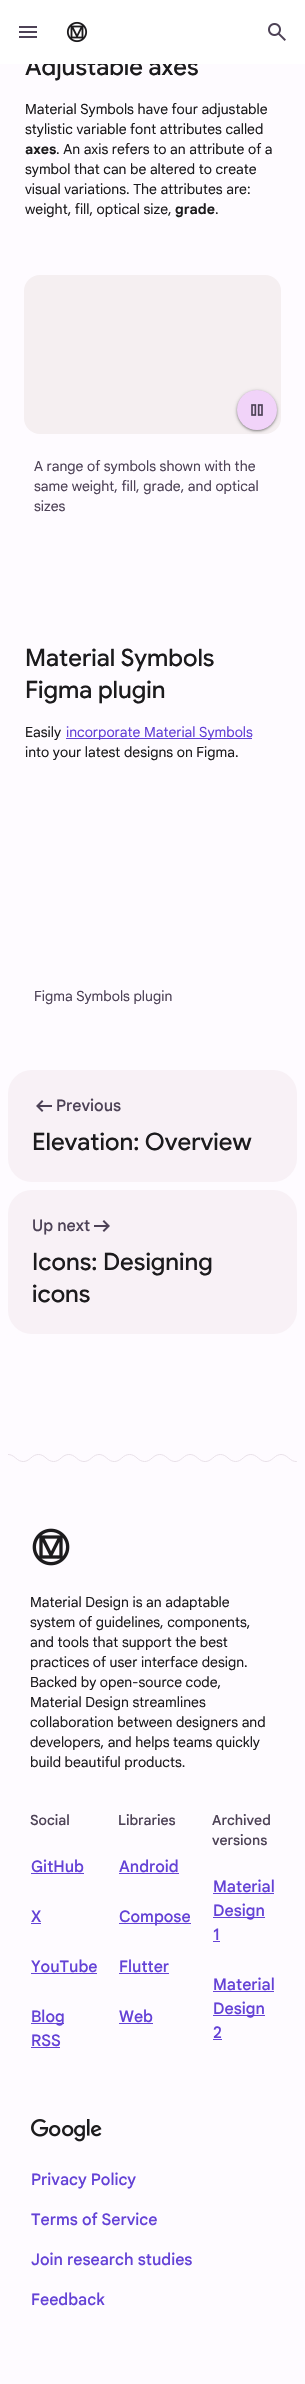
void draw(SkCanvas* canvas) {
    SkPaint paint;
    paint.setAntiAlias(true);
    canvas->clear(0xFFFEFBFF);
    SkFont font1(fontMgr->matchFamilyStyle("Google Sans", SkFontStyle(500, SkFontStyle::kNormal_Width, SkFontStyle::kUpright_Slant)), 24);
    font1.setSubpixel(true);
    paint.setColor(0xFF1C1B1D);
    canvas->drawString("Adjustable axes", 25, 75, font1, paint);
    paint.setColor(0xFFFFFFFF);
    canvas->drawRect(SkRect::MakeXYWH(0, 0, 305, 64), paint);
    canvas->drawImageRect(SkImages::DeferredFromEncodedData(SkData::MakeFromFileName("img1.png")), SkRect::MakeXYWH(19, 26, 18, 12), SkSamplingOptions());
    canvas->drawImageRect(SkImages::DeferredFromEncodedData(SkData::MakeFromFileName("img2.png")), SkRect::MakeXYWH(66, 21, 22, 22), SkSamplingOptions());
    canvas->drawImageRect(SkImages::DeferredFromEncodedData(SkData::MakeFromFileName("img3.png")), SkRect::MakeXYWH(268, 23, 18, 18), SkSamplingOptions());
    SkFont font2(fontMgr->matchFamilyStyle("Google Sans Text", SkFontStyle::Normal()), 14);
    font2.setSubpixel(true);
    paint.setColor(0xFF1C1B1D);
    canvas->drawString("Material Symbols have four adjustable", 25, 114, font2, paint);
    canvas->drawString("stylistic variable font attributes called", 25, 134, font2, paint);
    SkFont font3(fontMgr->matchFamilyStyle("Google Sans Text", SkFontStyle::Bold()), 14);
    font3.setSubpixel(true);
    canvas->drawString("axes", 25, 154, font3, paint);
    canvas->drawString(". An axis refers to an attribute of a", 56, 154, font2, paint);
    canvas->drawString("symbol that can be altered to create", 25, 174, font2, paint);
    canvas->drawString("visual variations. The attributes are:", 25, 194, font2, paint);
    canvas->drawString("weight, fill, optical size,", 25, 214, font2, paint);
    canvas->drawString("grade", 175, 214, font3, paint);
    canvas->drawString(".", 215, 214, font2, paint);
    paint.setColor(0xFFF5EFF1);
    canvas->drawRoundRect(SkRect::MakeXYWH(24, 275, 257, 159), 16, 16, paint);
    paint.setColor(0x26000000);
    paint.setMaskFilter(SkMaskFilter::MakeBlur(kNormal_SkBlurStyle, 1.5f));
    canvas->drawRoundRect(SkRect::MakeXYWH(236, 390, 42, 42), 21, 21, paint);
    paint.setMaskFilter(nullptr);
    paint.setColor(0x4D000000);
    paint.setMaskFilter(SkMaskFilter::MakeBlur(kNormal_SkBlurStyle, 1));
    canvas->drawRoundRect(SkRect::MakeXYWH(237, 391, 40, 40), 20, 20, paint);
    paint.setMaskFilter(nullptr);
    paint.setColor(0xFFF1D3F9);
    canvas->drawCircle(257, 410, 20, paint);
    canvas->drawImageRect(SkImages::DeferredFromEncodedData(SkData::MakeFromFileName("img4.png")), SkRect::MakeXYWH(251, 404, 12, 12), SkSamplingOptions());
    paint.setColor(0xFF4D4256);
    canvas->drawString("A range of symbols shown with the", 34, 471, font2, paint);
    canvas->drawString("same weight, fill, grade, and optical", 34, 491, font2, paint);
    canvas->drawString("sizes", 34, 511, font2, paint);
    paint.setColor(0xFF1C1B1D);
    canvas->drawString("Material Symbols", 25, 666, font1, paint);
    canvas->drawString("Figma plugin", 25, 698, font1, paint);
    canvas->drawString("Easily", 25, 737, font2, paint);
    paint.setColor(0xFF6442D6);
    canvas->drawRect(SkRect::MakeXYWH(66, 738, 186, 1), paint);
    canvas->drawString("incorporate Material Symbols", 66, 737, font2, paint);
    paint.setColor(0xFF1C1B1D);
    canvas->drawString("into your latest designs on Figma.", 25, 757, font2, paint);
    paint.setColor(0xFF4D4256);
    canvas->drawString("Figma Symbols plugin", 34, 1001, font2, paint);
    paint.setColor(0xFFF8F1F6);
    canvas->drawRoundRect(SkRect::MakeXYWH(8, 1070, 289, 112), 24, 24, paint);
    canvas->drawImageRect(SkImages::DeferredFromEncodedData(SkData::MakeFromFileName("img5.png")), SkRect::MakeXYWH(36, 1100, 16, 12), SkSamplingOptions());
    SkFont font4(fontMgr->matchFamilyStyle("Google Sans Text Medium", SkFontStyle(500, SkFontStyle::kNormal_Width, SkFontStyle::kUpright_Slant)), 16);
    font4.setSubpixel(true);
    paint.setColor(0xFF4D4256);
    canvas->drawString("Previous", 56, 1111, font4, paint);
    paint.setColor(0xFF1C1B1D);
    canvas->drawString("Elevation: Overview", 32, 1150, font1, paint);
    paint.setColor(0xFFF8F1F6);
    canvas->drawRoundRect(SkRect::MakeXYWH(8, 1190, 289, 144), 24, 24, paint);
    paint.setColor(0xFF4D4256);
    canvas->drawString("Up next", 32, 1231, font4, paint);
    canvas->drawImageRect(SkImages::DeferredFromEncodedData(SkData::MakeFromFileName("img6.png")), SkRect::MakeXYWH(94, 1220, 16, 12), SkSamplingOptions());
    paint.setColor(0xFF1C1B1D);
    canvas->drawString("Icons: Designing", 32, 1270, font1, paint);
    canvas->drawString("icons", 32, 1302, font1, paint);
    canvas->drawImageRect(SkImages::DeferredFromEncodedData(SkData::MakeFromFileName("img7.png")), SkRect::MakeXYWH(8, 1454, 289, 8), SkSamplingOptions());
    canvas->drawImageRect(SkImages::DeferredFromEncodedData(SkData::MakeFromFileName("img8.png")), SkRect::MakeXYWH(32, 1528, 38, 38), SkSamplingOptions());
    canvas->drawString("Material Design is an adaptable", 30, 1607, font2, paint);
    canvas->drawString("system of guidelines, components,", 30, 1627, font2, paint);
    canvas->drawString("and tools that support the best", 30, 1647, font2, paint);
    canvas->drawString("practices of user interface design.", 30, 1667, font2, paint);
    canvas->drawString("Backed by open-source code,", 30, 1687, font2, paint);
    canvas->drawString("Material Design streamlines", 30, 1707, font2, paint);
    canvas->drawString("collaboration between designers and", 30, 1727, font2, paint);
    canvas->drawString("developers, and helps teams quickly", 30, 1747, font2, paint);
    canvas->drawString("build beautiful products.", 30, 1767, font2, paint);
    SkFont font5(fontMgr->matchFamilyStyle("Google Sans Text Medium", SkFontStyle(500, SkFontStyle::kNormal_Width, SkFontStyle::kUpright_Slant)), 14);
    font5.setSubpixel(true);
    paint.setColor(0xFF4D4256);
    canvas->drawString("Social", 30, 1825, font5, paint);
    paint.setColor(0xFF6442D6);
    canvas->drawString("GitHub", 31, 1872, font4, paint);
    canvas->drawRect(SkRect::MakeXYWH(31, 1873, 53, 1), paint);
    canvas->drawString("X", 31, 1922, font4, paint);
    canvas->drawRect(SkRect::MakeXYWH(31, 1923, 10, 1), paint);
    canvas->drawString("YouTube", 31, 1972, font4, paint);
    canvas->drawRect(SkRect::MakeXYWH(31, 1973, 66, 1), paint);
    canvas->drawRect(SkRect::MakeXYWH(31, 2023, 33, 1), paint);
    canvas->drawString("Blog", 31, 2022, font4, paint);
    canvas->drawString("RSS", 31, 2046, font4, paint);
    canvas->drawRect(SkRect::MakeXYWH(31, 2047, 29, 1), paint);
    paint.setColor(0xFF4D4256);
    canvas->drawString("Libraries", 118, 1825, font5, paint);
    paint.setColor(0xFF6442D6);
    canvas->drawString("Android", 119, 1872, font4, paint);
    canvas->drawRect(SkRect::MakeXYWH(119, 1873, 60, 1), paint);
    canvas->drawRect(SkRect::MakeXYWH(119, 1923, 72, 1), paint);
    canvas->drawString("Compose", 119, 1922, font4, paint);
    canvas->drawString("Flutter", 119, 1972, font4, paint);
    canvas->drawRect(SkRect::MakeXYWH(119, 1973, 50, 1), paint);
    canvas->drawString("Web", 119, 2022, font4, paint);
    canvas->drawRect(SkRect::MakeXYWH(119, 2023, 34, 1), paint);
    paint.setColor(0xFF4D4256);
    canvas->drawString("Archived", 212, 1825, font5, paint);
    canvas->drawString("versions", 212, 1845, font5, paint);
    paint.setColor(0xFF6442D6);
    canvas->drawString("Material", 213, 1892, font4, paint);
    canvas->drawRect(SkRect::MakeXYWH(213, 1893, 61, 1), paint);
    canvas->drawRect(SkRect::MakeXYWH(213, 1917, 52, 1), paint);
    canvas->drawString("Design", 213, 1916, font4, paint);
    canvas->drawString("1", 213, 1940, font4, paint);
    canvas->drawRect(SkRect::MakeXYWH(213, 1941, 7, 1), paint);
    canvas->drawString("Material", 213, 1990, font4, paint);
    canvas->drawRect(SkRect::MakeXYWH(213, 1991, 61, 1), paint);
    canvas->drawRect(SkRect::MakeXYWH(213, 2015, 52, 1), paint);
    canvas->drawString("Design", 213, 2014, font4, paint);
    canvas->drawString("2", 213, 2038, font4, paint);
    canvas->drawRect(SkRect::MakeXYWH(213, 2039, 9, 1), paint);
    canvas->drawImageRect(SkImages::DeferredFromEncodedData(SkData::MakeFromFileName("img9.png")), SkRect::MakeXYWH(31, 2119, 71, 23), SkSamplingOptions());
    canvas->drawString("Privacy Policy", 31, 2185, font4, paint);
    canvas->drawString("Terms of Service", 31, 2225, font4, paint);
    canvas->drawString("Join research studies", 31, 2265, font4, paint);
    canvas->drawString("Feedback", 31, 2305, font4, paint);
}
